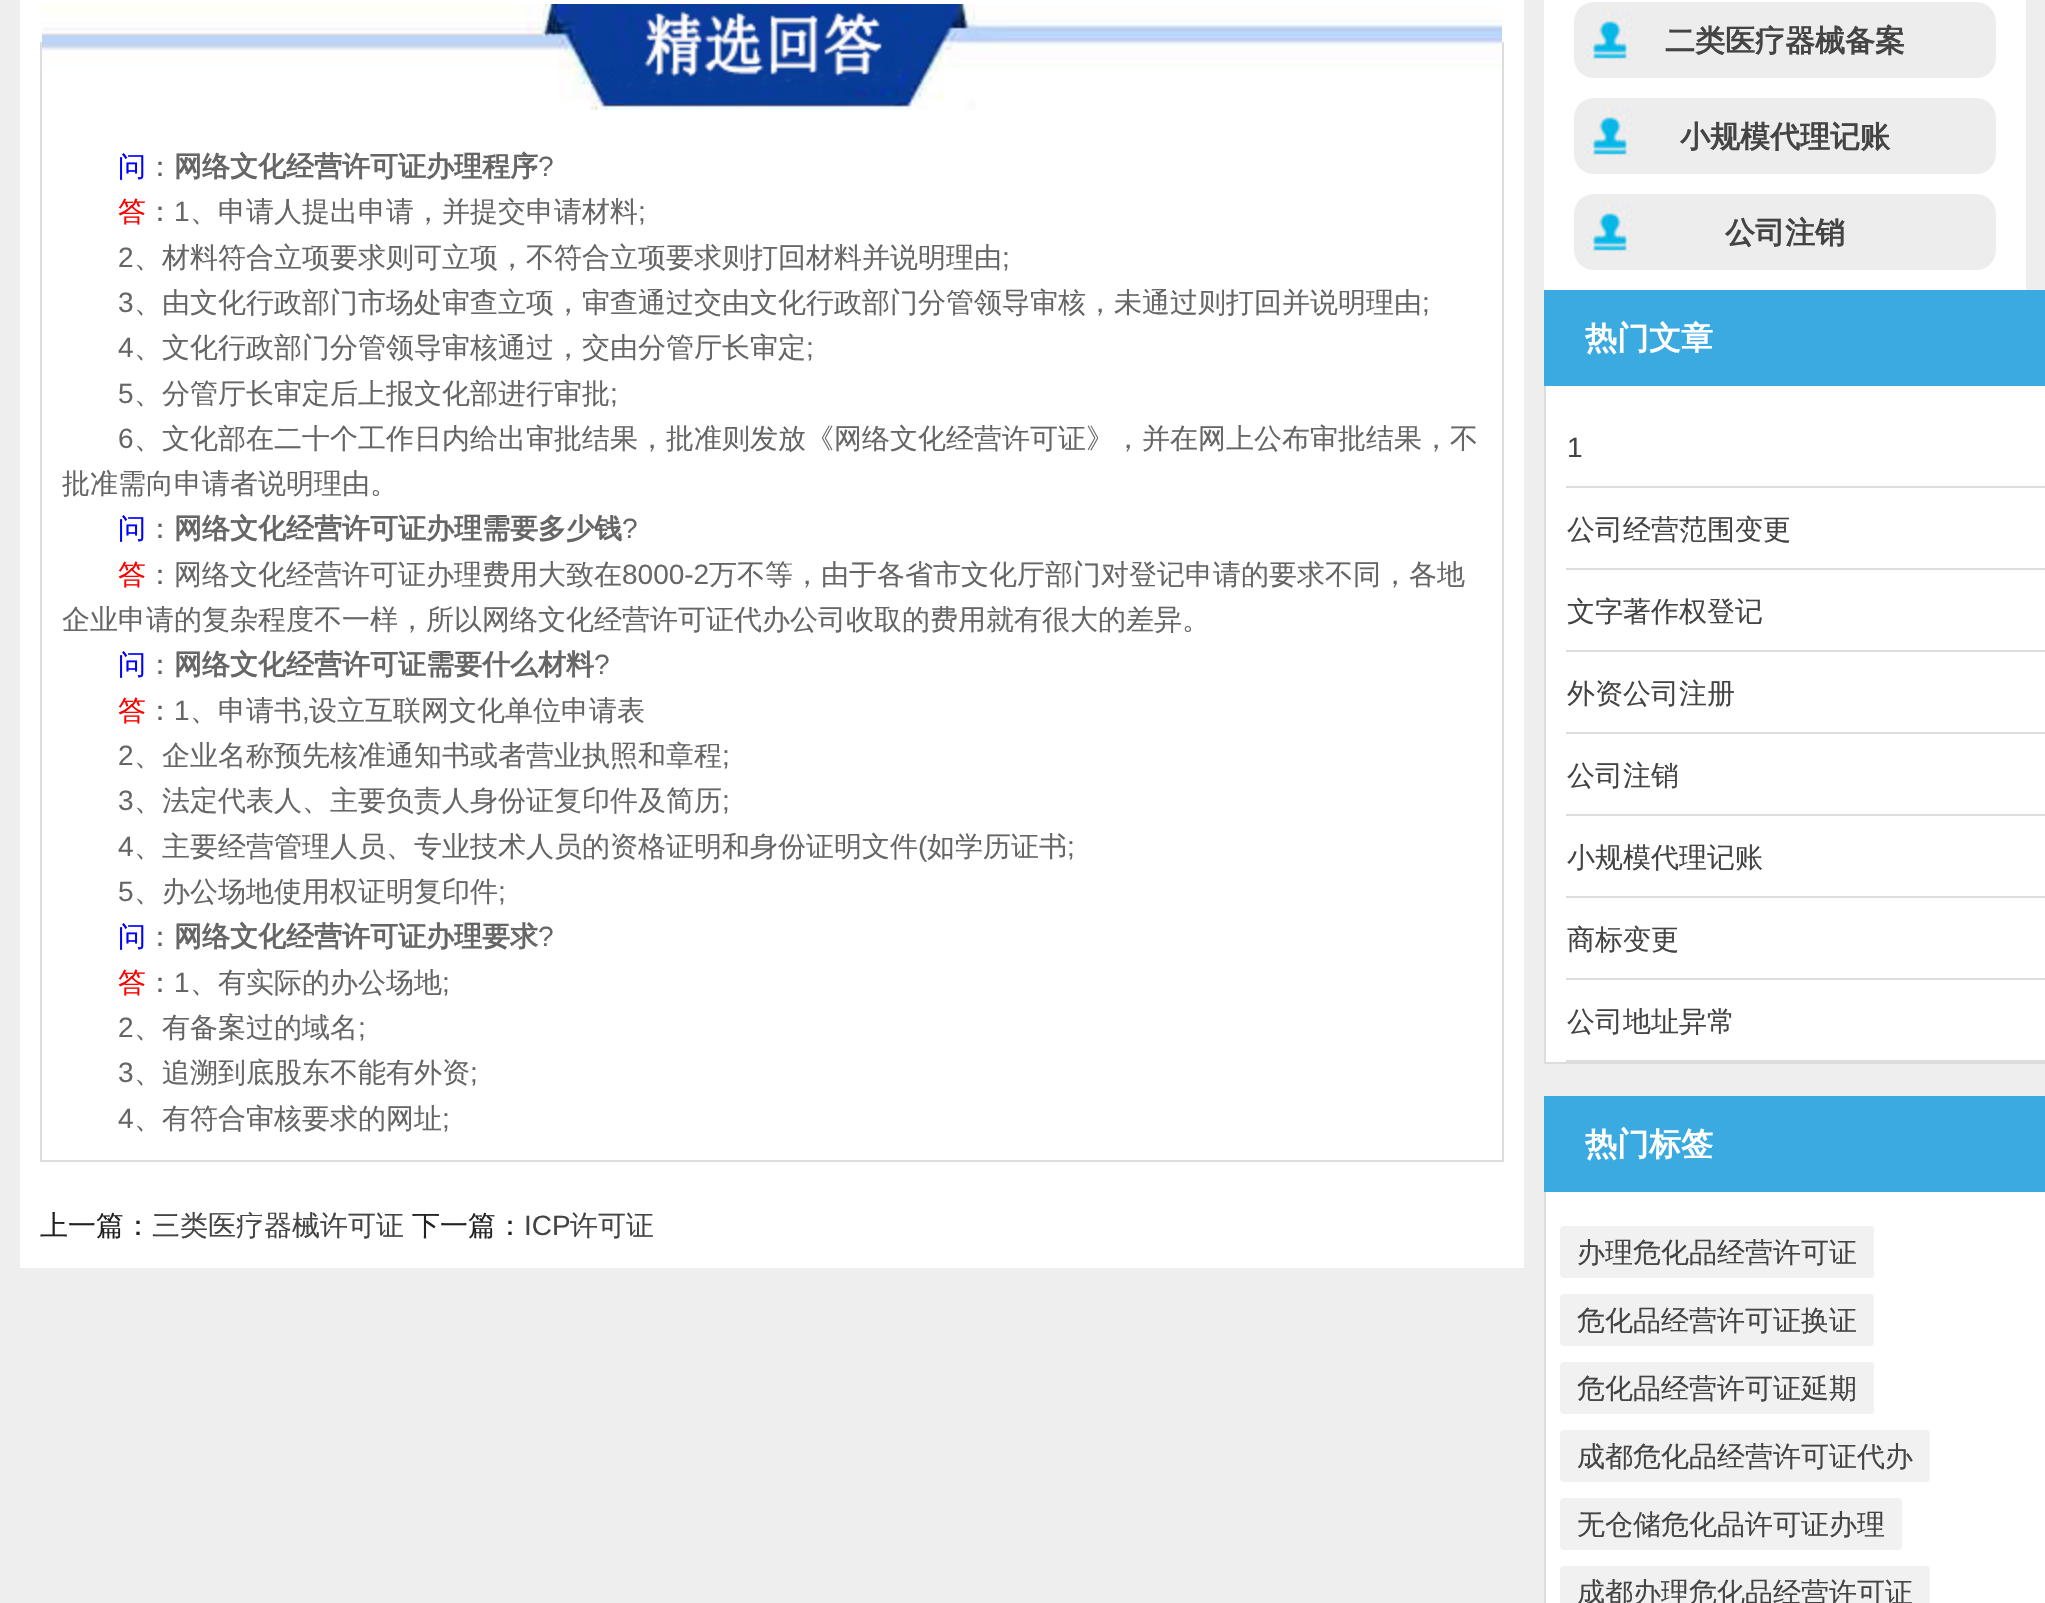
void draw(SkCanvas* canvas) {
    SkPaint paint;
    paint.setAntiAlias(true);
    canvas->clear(0xFFEEEEEE);
    paint.setColor(0xFFFFFFFF);
    canvas->drawRect(SkRect::MakeXYWH(20, 0, 1504, 1268), paint);
    paint.setStyle(SkPaint::kStroke_Style);
    paint.setStrokeWidth(2);
    paint.setColor(0xFFDDDDDD);
    canvas->drawRect(SkRect::MakeXYWH(41, 43, 1462, 1118), paint);
    canvas->drawImageRect(SkImages::DeferredFromEncodedData(SkData::MakeFromFileName("img1.png")), SkRect::MakeXYWH(42, 4, 1460, 106), SkSamplingOptions());
    SkFont font1(fontMgr->matchFamilyStyle("WenQuanYi Zen Hei", SkFontStyle(500, SkFontStyle::kNormal_Width, SkFontStyle::kUpright_Slant)), 28);
    font1.setSubpixel(true);
    paint.setStyle(SkPaint::kFill_Style);
    paint.setColor(0xFF0000FF);
    canvas->drawString("问", 118, 176, font1, paint);
    paint.setColor(0xFF666666);
    canvas->drawString("：", 146, 176, font1, paint);
    SkFont font2(fontMgr->matchFamilyStyle("WenQuanYi Zen Hei", SkFontStyle::Bold()), 28);
    font2.setSubpixel(true);
    canvas->drawString("网络文化经营许可证办理程序", 174, 176, font2, paint);
    SkFont font3(fontMgr->matchFamilyStyle("Liberation Sans", SkFontStyle::Normal()), 28);
    font3.setSubpixel(true);
    canvas->drawString("?", 538, 176, font3, paint);
    paint.setColor(0xFFFF0000);
    canvas->drawString("答", 118, 221, font1, paint);
    paint.setColor(0xFF666666);
    canvas->drawString("：", 146, 221, font1, paint);
    canvas->drawString("1", 174, 221, font3, paint);
    canvas->drawString("、申请人提出申请，并提交申请材料", 190, 221, font1, paint);
    canvas->drawString(";", 638, 221, font3, paint);
    canvas->drawString("2", 118, 267, font3, paint);
    canvas->drawString("、材料符合立项要求则可立项，不符合立项要求则打回材料并说明理由", 134, 267, font1, paint);
    canvas->drawString(";", 1002, 267, font3, paint);
    canvas->drawString("3", 118, 312, font3, paint);
    canvas->drawString("、由文化行政部门市场处审查立项，审查通过交由文化行政部门分管领导审核，未通过则打回并说明理由", 134, 312, font1, paint);
    canvas->drawString(";", 1422, 312, font3, paint);
    canvas->drawString("4", 118, 357, font3, paint);
    canvas->drawString("、文化行政部门分管领导审核通过，交由分管厅长审定", 134, 357, font1, paint);
    canvas->drawString(";", 806, 357, font3, paint);
    canvas->drawString("5", 118, 403, font3, paint);
    canvas->drawString("、分管厅长审定后上报文化部进行审批", 134, 403, font1, paint);
    canvas->drawString(";", 610, 403, font3, paint);
    canvas->drawString("6", 118, 448, font3, paint);
    canvas->drawString("、文化部在二十个工作日内给出审批结果，批准则发放《网络文化经营许可证》，并在网上公布审批结果，不", 134, 448, font1, paint);
    canvas->drawString("批准需向申请者说明理由。", 62, 493, font1, paint);
    paint.setColor(0xFF0000FF);
    canvas->drawString("问", 118, 538, font1, paint);
    paint.setColor(0xFF666666);
    canvas->drawString("：", 146, 538, font1, paint);
    canvas->drawString("网络文化经营许可证办理需要多少钱", 174, 538, font2, paint);
    canvas->drawString("?", 622, 538, font3, paint);
    paint.setColor(0xFFFF0000);
    canvas->drawString("答", 118, 584, font1, paint);
    paint.setColor(0xFF666666);
    canvas->drawString("：网络文化经营许可证办理费用大致在", 146, 584, font1, paint);
    canvas->drawString("8000-2", 622, 584, font3, paint);
    canvas->drawString("万不等，由于各省市文化厅部门对登记申请的要求不同，各地", 709, 584, font1, paint);
    canvas->drawString("企业申请的复杂程度不一样，所以网络文化经营许可证代办公司收取的费用就有很大的差异。", 62, 629, font1, paint);
    paint.setColor(0xFF0000FF);
    canvas->drawString("问", 118, 674, font1, paint);
    paint.setColor(0xFF666666);
    canvas->drawString("：", 146, 674, font1, paint);
    canvas->drawString("网络文化经营许可证需要什么材料", 174, 674, font2, paint);
    canvas->drawString("?", 594, 674, font3, paint);
    paint.setColor(0xFFFF0000);
    canvas->drawString("答", 118, 720, font1, paint);
    paint.setColor(0xFF666666);
    canvas->drawString("：", 146, 720, font1, paint);
    canvas->drawString("1", 174, 720, font3, paint);
    canvas->drawString("、申请书", 190, 720, font1, paint);
    canvas->drawString(",", 302, 720, font3, paint);
    canvas->drawString("设立互联网文化单位申请表", 309, 720, font1, paint);
    canvas->drawString("2", 118, 765, font3, paint);
    canvas->drawString("、企业名称预先核准通知书或者营业执照和章程", 134, 765, font1, paint);
    canvas->drawString(";", 722, 765, font3, paint);
    canvas->drawString("3", 118, 810, font3, paint);
    canvas->drawString("、法定代表人、主要负责人身份证复印件及简历", 134, 810, font1, paint);
    canvas->drawString(";", 722, 810, font3, paint);
    canvas->drawString("4", 118, 856, font3, paint);
    canvas->drawString("、主要经营管理人员、专业技术人员的资格证明和身份证明文件", 134, 856, font1, paint);
    canvas->drawString("(", 918, 856, font3, paint);
    canvas->drawString("如学历证书", 927, 856, font1, paint);
    canvas->drawString(";", 1067, 856, font3, paint);
    canvas->drawString("5", 118, 901, font3, paint);
    canvas->drawString("、办公场地使用权证明复印件", 134, 901, font1, paint);
    canvas->drawString(";", 498, 901, font3, paint);
    paint.setColor(0xFF0000FF);
    canvas->drawString("问", 118, 946, font1, paint);
    paint.setColor(0xFF666666);
    canvas->drawString("：", 146, 946, font1, paint);
    canvas->drawString("网络文化经营许可证办理要求", 174, 946, font2, paint);
    canvas->drawString("?", 538, 946, font3, paint);
    paint.setColor(0xFFFF0000);
    canvas->drawString("答", 118, 992, font1, paint);
    paint.setColor(0xFF666666);
    canvas->drawString("：", 146, 992, font1, paint);
    canvas->drawString("1", 174, 992, font3, paint);
    canvas->drawString("、有实际的办公场地", 190, 992, font1, paint);
    canvas->drawString(";", 442, 992, font3, paint);
    canvas->drawString("2", 118, 1037, font3, paint);
    canvas->drawString("、有备案过的域名", 134, 1037, font1, paint);
    canvas->drawString(";", 358, 1037, font3, paint);
    canvas->drawString("3", 118, 1082, font3, paint);
    canvas->drawString("、追溯到底股东不能有外资", 134, 1082, font1, paint);
    canvas->drawString(";", 470, 1082, font3, paint);
    canvas->drawString("4", 118, 1128, font3, paint);
    canvas->drawString("、有符合审核要求的网址", 134, 1128, font1, paint);
    canvas->drawString(";", 442, 1128, font3, paint);
    paint.setColor(0xFF222222);
    canvas->drawString("上一篇：", 40, 1235, font1, paint);
    paint.setColor(0xFF444444);
    canvas->drawString("三类医疗器械许可证", 152, 1235, font1, paint);
    paint.setColor(0xFF222222);
    canvas->drawString("下一篇：", 412, 1235, font1, paint);
    paint.setColor(0xFF444444);
    canvas->drawString("ICP", 524, 1235, font3, paint);
    canvas->drawString("许可证", 570, 1235, font1, paint);
    paint.setColor(0xFFFFFFFF);
    canvas->drawRect(SkRect::MakeXYWH(1544, 0, 482, 290), paint);
    paint.setColor(0xFFEDEDED);
    canvas->drawRoundRect(SkRect::MakeXYWH(1574, 2, 422, 76), 20, 20, paint);
    canvas->drawImageRect(SkImages::DeferredFromEncodedData(SkData::MakeFromFileName("img2.png")), SkRect::MakeXYWH(1584, 12, 48, 49), SkSamplingOptions());
    SkFont font4(fontMgr->matchFamilyStyle("WenQuanYi Zen Hei", SkFontStyle::Bold()), 30);
    font4.setSubpixel(true);
    paint.setColor(0xFF444444);
    canvas->drawString("二类医疗器械备案", 1665, 51, font4, paint);
    paint.setColor(0xFFEDEDED);
    canvas->drawRoundRect(SkRect::MakeXYWH(1574, 98, 422, 76), 20, 20, paint);
    canvas->drawImageRect(SkImages::DeferredFromEncodedData(SkData::MakeFromFileName("img2.png")), SkRect::MakeXYWH(1584, 108, 48, 49), SkSamplingOptions());
    paint.setColor(0xFF444444);
    canvas->drawString("小规模代理记账", 1680, 147, font4, paint);
    paint.setColor(0xFFEDEDED);
    canvas->drawRoundRect(SkRect::MakeXYWH(1574, 194, 422, 76), 20, 20, paint);
    canvas->drawImageRect(SkImages::DeferredFromEncodedData(SkData::MakeFromFileName("img2.png")), SkRect::MakeXYWH(1584, 204, 48, 49), SkSamplingOptions());
    paint.setColor(0xFF444444);
    canvas->drawString("公司注销", 1725, 243, font4, paint);
    paint.setColor(0xFFFFFFFF);
    canvas->drawRect(SkRect::MakeXYWH(1546, 386, 499, 676), paint);
    paint.setStyle(SkPaint::kStroke_Style);
    paint.setColor(0xFFDDDDDD);
    canvas->drawRect(SkRect::MakeXYWH(1545, 291, 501, 772), paint);
    paint.setStyle(SkPaint::kFill_Style);
    paint.setColor(0xFF3AAAE1);
    canvas->drawRect(SkRect::MakeXYWH(1544, 290, 501, 96), paint);
    SkFont font5(fontMgr->matchFamilyStyle("WenQuanYi Zen Hei", SkFontStyle::Bold()), 32);
    font5.setSubpixel(true);
    paint.setColor(0xFFFFFFFF);
    canvas->drawString("热门文章", 1585, 349, font5, paint);
    paint.setColor(0xFFDDDDDD);
    canvas->drawRect(SkRect::MakeXYWH(1566, 486, 479, 2), paint);
    paint.setColor(0xFF444444);
    canvas->drawString("1", 1567, 457, font3, paint);
    paint.setColor(0xFFDDDDDD);
    canvas->drawRect(SkRect::MakeXYWH(1566, 568, 479, 2), paint);
    paint.setColor(0xFF444444);
    canvas->drawString("公司经营范围变更", 1567, 539, font1, paint);
    paint.setColor(0xFFDDDDDD);
    canvas->drawRect(SkRect::MakeXYWH(1566, 650, 479, 2), paint);
    paint.setColor(0xFF444444);
    canvas->drawString("文字著作权登记", 1567, 621, font1, paint);
    paint.setColor(0xFFDDDDDD);
    canvas->drawRect(SkRect::MakeXYWH(1566, 732, 479, 2), paint);
    paint.setColor(0xFF444444);
    canvas->drawString("外资公司注册", 1567, 703, font1, paint);
    paint.setColor(0xFFDDDDDD);
    canvas->drawRect(SkRect::MakeXYWH(1566, 814, 479, 2), paint);
    paint.setColor(0xFF444444);
    canvas->drawString("公司注销", 1567, 785, font1, paint);
    paint.setColor(0xFFDDDDDD);
    canvas->drawRect(SkRect::MakeXYWH(1566, 896, 479, 2), paint);
    paint.setColor(0xFF444444);
    canvas->drawString("小规模代理记账", 1567, 867, font1, paint);
    paint.setColor(0xFFDDDDDD);
    canvas->drawRect(SkRect::MakeXYWH(1566, 978, 479, 2), paint);
    paint.setColor(0xFF444444);
    canvas->drawString("商标变更", 1567, 949, font1, paint);
    paint.setColor(0xFFDDDDDD);
    canvas->drawRect(SkRect::MakeXYWH(1566, 1060, 479, 2), paint);
    paint.setColor(0xFF444444);
    canvas->drawString("公司地址异常", 1567, 1031, font1, paint);
    paint.setColor(0xFFFFFFFF);
    canvas->drawRect(SkRect::MakeXYWH(1546, 1192, 499, 411), paint);
    paint.setStyle(SkPaint::kStroke_Style);
    paint.setColor(0xFFDDDDDD);
    canvas->drawRect(SkRect::MakeXYWH(1545, 1097, 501, 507), paint);
    paint.setStyle(SkPaint::kFill_Style);
    paint.setColor(0xFF3AAAE1);
    canvas->drawRect(SkRect::MakeXYWH(1544, 1096, 501, 96), paint);
    paint.setColor(0xFFFFFFFF);
    canvas->drawString("热门标签", 1585, 1155, font5, paint);
    paint.setColor(0xFFF1F1F1);
    canvas->drawRoundRect(SkRect::MakeXYWH(1560, 1226, 314, 52), 4, 4, paint);
    paint.setColor(0xFF444444);
    canvas->drawString("办理危化品经营许可证", 1577, 1262, font1, paint);
    paint.setColor(0xFFF1F1F1);
    canvas->drawRoundRect(SkRect::MakeXYWH(1560, 1294, 314, 52), 4, 4, paint);
    paint.setColor(0xFF444444);
    canvas->drawString("危化品经营许可证换证", 1577, 1330, font1, paint);
    paint.setColor(0xFFF1F1F1);
    canvas->drawRoundRect(SkRect::MakeXYWH(1560, 1362, 314, 52), 4, 4, paint);
    paint.setColor(0xFF444444);
    canvas->drawString("危化品经营许可证延期", 1577, 1398, font1, paint);
    paint.setColor(0xFFF1F1F1);
    canvas->drawRoundRect(SkRect::MakeXYWH(1560, 1430, 370, 52), 4, 4, paint);
    paint.setColor(0xFF444444);
    canvas->drawString("成都危化品经营许可证代办", 1577, 1466, font1, paint);
    paint.setColor(0xFFF1F1F1);
    canvas->drawRoundRect(SkRect::MakeXYWH(1560, 1498, 342, 52), 4, 4, paint);
    paint.setColor(0xFF444444);
    canvas->drawString("无仓储危化品许可证办理", 1577, 1534, font1, paint);
    paint.setColor(0xFFF1F1F1);
    canvas->drawRoundRect(SkRect::MakeXYWH(1560, 1566, 370, 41), 4, 4, paint);
    paint.setColor(0xFF444444);
    canvas->drawString("成都办理危化品经营许可证", 1577, 1602, font1, paint);
}
